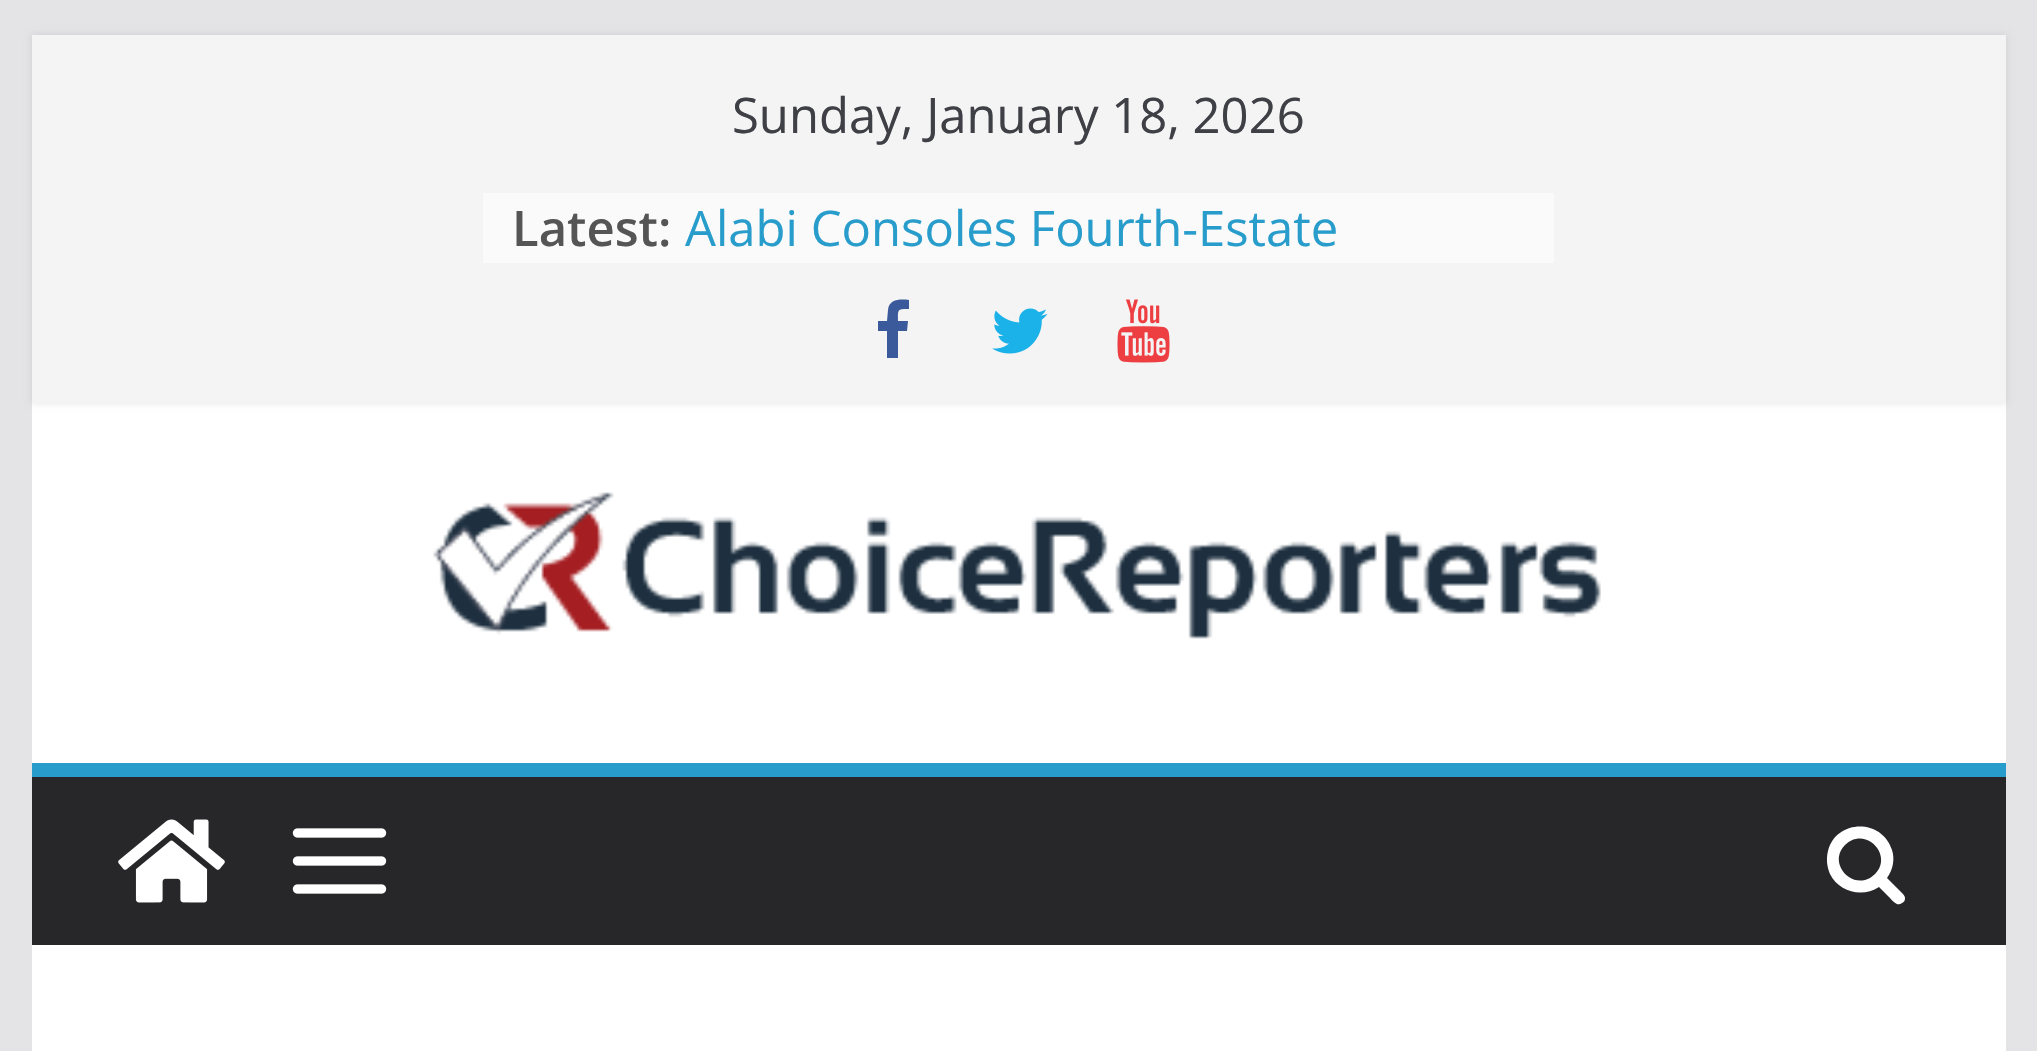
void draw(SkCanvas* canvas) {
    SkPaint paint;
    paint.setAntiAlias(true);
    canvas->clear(0xFFE4E4E7);
    paint.setColor(0xFFFFFFFF);
    canvas->drawRect(SkRect::MakeXYWH(32, 403, 1974, 360), paint);
    paint.setColor(0x1A000000);
    paint.setMaskFilter(SkMaskFilter::MakeBlur(kNormal_SkBlurStyle, 3.5f));
    canvas->drawRect(SkRect::MakeXYWH(32, 35, 1974, 368), paint);
    paint.setMaskFilter(nullptr);
    paint.setColor(0xFFF4F4F5);
    canvas->drawRect(SkRect::MakeXYWH(32, 35, 1974, 368), paint);
    SkFont font1(fontMgr->matchFamilyStyle("Open Sans", SkFontStyle::Normal()), 49);
    font1.setSubpixel(true);
    paint.setColor(0xFF3F3F46);
    canvas->drawString("Sunday, January 18, 2026", 732, 133, font1, paint);
    paint.setColor(0xFFFAFAFA);
    canvas->drawRect(SkRect::MakeXYWH(483, 193, 1071, 70), paint);
    SkFont font2(fontMgr->matchFamilyStyle("Open Sans", SkFontStyle(600, SkFontStyle::kNormal_Width, SkFontStyle::kUpright_Slant)), 49);
    font2.setSubpixel(true);
    paint.setColor(0xFF555555);
    canvas->drawString("Latest:", 512, 246, font2, paint);
    paint.setColor(0xFF289DCC);
    canvas->drawString("Alabi Consoles Fourth-Estate", 685, 246, font1, paint);
    paint.setColor(0xFF3B5A9B);
    canvas->drawPath(SkPathBuilder().moveTo(909, 300).lineTo(909, 309).cubicTo(897, 309, 898, 309, 898, 321).lineTo(908, 321).lineTo(907, 331).lineTo(898, 331).lineTo(898, 358).lineTo(887, 358).lineTo(887, 331).lineTo(878, 331).lineTo(878, 321).lineTo(887, 321).lineTo(888, 310).cubicTo(889, 299, 900, 299, 909, 300).close().detach(), paint);
    canvas->drawImageRect(SkImages::DeferredFromEncodedData(SkData::MakeFromFileName("img1.png")), SkRect::MakeXYWH(992, 308, 56, 46), SkSamplingOptions());
    canvas->drawImageRect(SkImages::DeferredFromEncodedData(SkData::MakeFromFileName("img2.png")), SkRect::MakeXYWH(1117, 299, 53, 64), SkSamplingOptions());
    canvas->drawImageRect(SkImages::DeferredFromEncodedData(SkData::MakeFromFileName("img3.png")), SkRect::MakeXYWH(433, 492, 1168, 147), SkSamplingOptions());
    paint.setColor(0xFF27272A);
    canvas->drawRect(SkRect::MakeXYWH(32, 777, 1974, 168), paint);
    paint.setColor(0xFF289DCC);
    canvas->drawRect(SkRect::MakeXYWH(32, 763, 1974, 14), paint);
    canvas->drawImageRect(SkImages::DeferredFromEncodedData(SkData::MakeFromFileName("img4.png")), SkRect::MakeXYWH(118, 819, 107, 84), SkSamplingOptions());
    canvas->drawImageRect(SkImages::DeferredFromEncodedData(SkData::MakeFromFileName("img5.png")), SkRect::MakeXYWH(292, 828, 95, 66), SkSamplingOptions());
    paint.setColor(0xFFFFFFFF);
    canvas->drawPath(SkPathBuilder().moveTo(1875, 874).cubicTo(1894, 855, 1865, 825, 1845, 845).cubicTo(1826, 864, 1855, 894, 1875, 874).close().moveTo(1905, 898).cubicTo(1905, 901, 1904, 902, 1902, 903).cubicTo(1897, 907, 1893, 901, 1889, 897).lineTo(1879, 887).cubicTo(1862, 898, 1839, 892, 1830, 874).cubicTo(1827, 867, 1826, 859, 1828, 851).cubicTo(1836, 819, 1882, 818, 1892, 850).cubicTo(1895, 859, 1893, 870, 1887, 878).lineTo(1903, 894).cubicTo(1904, 895, 1905, 897, 1905, 898).close().detach(), paint);
    canvas->drawRect(SkRect::MakeXYWH(32, 945, 1974, 106), paint);
}
